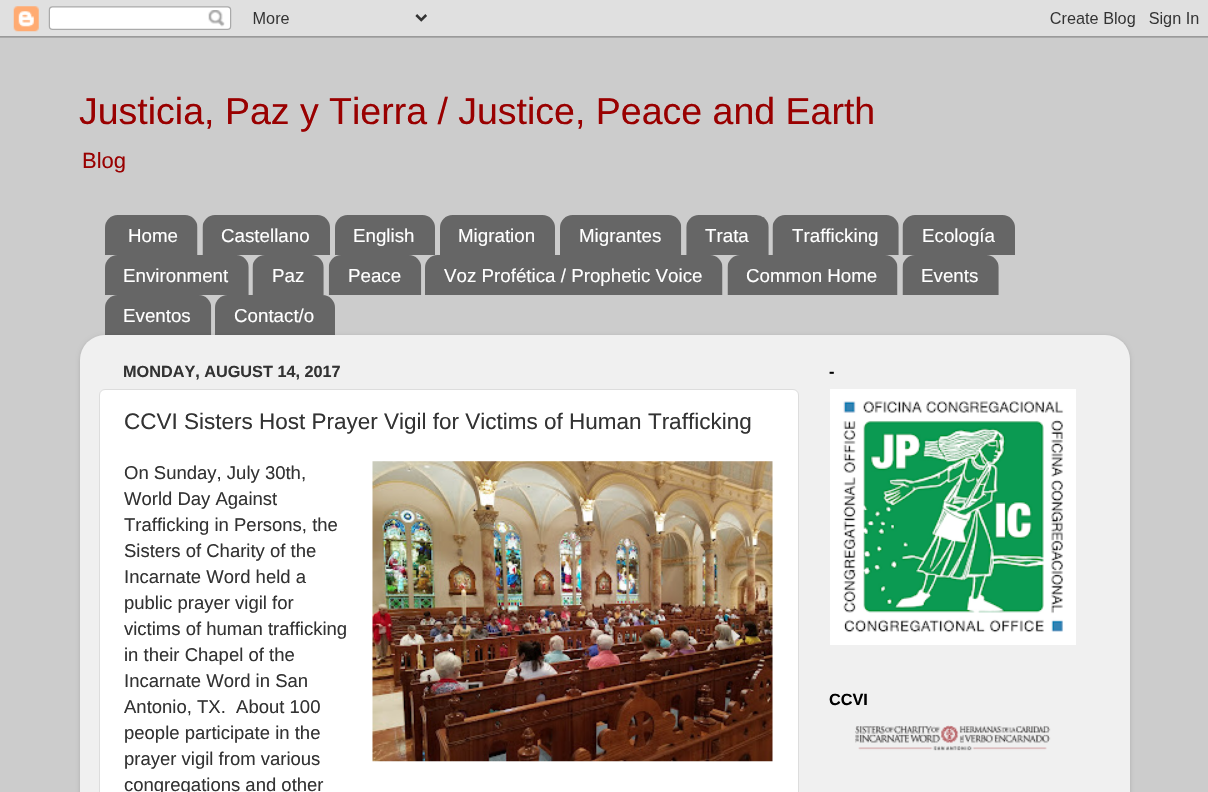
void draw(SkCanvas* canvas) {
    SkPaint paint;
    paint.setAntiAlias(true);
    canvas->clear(0xFFCCCCCC);
    canvas->drawImageRect(SkImages::DeferredFromEncodedData(SkData::MakeFromFileName("img1.png")), SkRect::MakeXYWH(0, 0, 1208, 38), SkSamplingOptions());
    SkFont font1(fontMgr->matchFamilyStyle("Liberation Sans", SkFontStyle::Normal()), 37.5f);
    font1.setSubpixel(true);
    paint.setColor(0xFF990000);
    canvas->drawString("Justicia, Paz y Tierra / Justice, Peace and Earth", 79, 124, font1, paint);
    SkFont font2(fontMgr->matchFamilyStyle("Liberation Sans", SkFontStyle::Normal()), 22);
    font2.setSubpixel(true);
    canvas->drawString("Blog", 82, 168, font2, paint);
    canvas->drawImageRect(SkImages::DeferredFromEncodedData(SkData::MakeFromFileName("img2.png")), SkRect::MakeXYWH(105, 215, 93, 40), SkSamplingOptions());
    SkFont font3(fontMgr->matchFamilyStyle("Liberation Sans", SkFontStyle::Normal()), 18.75f);
    font3.setSubpixel(true);
    paint.setColor(0xFFFFFFFF);
    canvas->drawString("Home", 128, 242, font3, paint);
    canvas->drawImageRect(SkImages::DeferredFromEncodedData(SkData::MakeFromFileName("img3.png")), SkRect::MakeXYWH(202, 215, 128, 40), SkSamplingOptions());
    canvas->drawString("Castellano", 221, 242, font3, paint);
    canvas->drawImageRect(SkImages::DeferredFromEncodedData(SkData::MakeFromFileName("img4.png")), SkRect::MakeXYWH(335, 215, 100, 40), SkSamplingOptions());
    canvas->drawString("English", 353, 242, font3, paint);
    canvas->drawImageRect(SkImages::DeferredFromEncodedData(SkData::MakeFromFileName("img5.png")), SkRect::MakeXYWH(440, 215, 115, 40), SkSamplingOptions());
    canvas->drawString("Migration", 458, 242, font3, paint);
    canvas->drawImageRect(SkImages::DeferredFromEncodedData(SkData::MakeFromFileName("img6.png")), SkRect::MakeXYWH(560, 215, 122, 40), SkSamplingOptions());
    canvas->drawString("Migrantes", 579, 242, font3, paint);
    canvas->drawImageRect(SkImages::DeferredFromEncodedData(SkData::MakeFromFileName("img7.png")), SkRect::MakeXYWH(686, 215, 83, 40), SkSamplingOptions());
    canvas->drawString("Trata", 705, 242, font3, paint);
    canvas->drawImageRect(SkImages::DeferredFromEncodedData(SkData::MakeFromFileName("img8.png")), SkRect::MakeXYWH(772, 215, 127, 40), SkSamplingOptions());
    canvas->drawString("Trafficking", 792, 242, font3, paint);
    canvas->drawImageRect(SkImages::DeferredFromEncodedData(SkData::MakeFromFileName("img9.png")), SkRect::MakeXYWH(902, 215, 113, 40), SkSamplingOptions());
    canvas->drawString("Ecología", 922, 242, font3, paint);
    canvas->drawImageRect(SkImages::DeferredFromEncodedData(SkData::MakeFromFileName("img10.png")), SkRect::MakeXYWH(105, 255, 144, 40), SkSamplingOptions());
    canvas->drawString("Environment", 123, 282, font3, paint);
    canvas->drawImageRect(SkImages::DeferredFromEncodedData(SkData::MakeFromFileName("img11.png")), SkRect::MakeXYWH(252, 255, 72, 40), SkSamplingOptions());
    canvas->drawString("Paz", 272, 282, font3, paint);
    canvas->drawImageRect(SkImages::DeferredFromEncodedData(SkData::MakeFromFileName("img12.png")), SkRect::MakeXYWH(328, 255, 94, 40), SkSamplingOptions());
    canvas->drawString("Peace", 348, 282, font3, paint);
    canvas->drawImageRect(SkImages::DeferredFromEncodedData(SkData::MakeFromFileName("img13.png")), SkRect::MakeXYWH(425, 255, 298, 40), SkSamplingOptions());
    canvas->drawString("Voz Profética / Prophetic Voice", 444, 282, font3, paint);
    canvas->drawImageRect(SkImages::DeferredFromEncodedData(SkData::MakeFromFileName("img14.png")), SkRect::MakeXYWH(727, 255, 171, 40), SkSamplingOptions());
    canvas->drawString("Common Home", 746, 282, font3, paint);
    canvas->drawImageRect(SkImages::DeferredFromEncodedData(SkData::MakeFromFileName("img15.png")), SkRect::MakeXYWH(902, 255, 97, 40), SkSamplingOptions());
    canvas->drawString("Events", 921, 282, font3, paint);
    canvas->drawImageRect(SkImages::DeferredFromEncodedData(SkData::MakeFromFileName("img16.png")), SkRect::MakeXYWH(105, 295, 107, 40), SkSamplingOptions());
    canvas->drawString("Eventos", 123, 322, font3, paint);
    canvas->drawImageRect(SkImages::DeferredFromEncodedData(SkData::MakeFromFileName("img17.png")), SkRect::MakeXYWH(215, 295, 120, 40), SkSamplingOptions());
    canvas->drawString("Contact/o", 234, 322, font3, paint);
    canvas->save();
    canvas->clipPath(SkPathBuilder(SkPathFillType::kEvenOdd).moveTo(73, 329).lineTo(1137, 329).lineTo(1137, 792).lineTo(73, 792).close().moveTo(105, 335).lineTo(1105, 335).cubicTo(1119, 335, 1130, 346, 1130, 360).lineTo(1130, 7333).lineTo(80, 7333).lineTo(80, 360).cubicTo(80, 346, 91, 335, 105, 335).close().detach(), true);
    paint.setColor(0x26000000);
    paint.setMaskFilter(SkMaskFilter::MakeBlur(kNormal_SkBlurStyle, 2));
    canvas->drawRoundRect(SkRect::MakeXYWH(80, 336, 1050, 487), 25, 25, paint);
    paint.setMaskFilter(nullptr);
    canvas->restore();
    canvas->drawImageRect(SkImages::DeferredFromEncodedData(SkData::MakeFromFileName("img18.png")), SkRect::MakeXYWH(80, 335, 1050, 457), SkSamplingOptions());
    SkFont font4(fontMgr->matchFamilyStyle("Liberation Sans", SkFontStyle::Bold()), 16.25f);
    font4.setSubpixel(true);
    paint.setColor(0xFF333333);
    canvas->drawString("MONDAY, AUGUST 14, 2017", 123, 377, font4, paint);
    paint.setColor(0xFFFFFFFF);
    canvas->drawRoundRect(SkRect::MakeXYWH(99.5f, 389.5f, 699, 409), 5.5f, 5.5f, paint);
    paint.setStyle(SkPaint::kStroke_Style);
    paint.setStrokeWidth(1);
    paint.setColor(0xFFDDDDDD);
    canvas->drawRoundRect(SkRect::MakeXYWH(99.5f, 389.5f, 699, 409), 5.5f, 5.5f, paint);
    SkFont font5(fontMgr->matchFamilyStyle("Liberation Sans", SkFontStyle::Normal()), 22.5f);
    font5.setSubpixel(true);
    paint.setStyle(SkPaint::kFill_Style);
    paint.setColor(0xFF333333);
    canvas->drawString("CCVI Sisters Host Prayer Vigil for Victims of Human Trafficking", 124, 429, font5, paint);
    SkFont font6(fontMgr->matchFamilyStyle("Liberation Sans", SkFontStyle::Normal()), 18.5f);
    font6.setSubpixel(true);
    canvas->drawString("On Sunday, July 30th,", 124, 479, font6, paint);
    canvas->drawImageRect(SkImages::DeferredFromEncodedData(SkData::MakeFromFileName("img19.png")), SkRect::MakeXYWH(372, 461, 401, 301), SkSamplingOptions());
    canvas->drawString("World Day Against", 124, 505, font6, paint);
    canvas->drawString("Trafficking in Persons, the", 124, 531, font6, paint);
    canvas->drawString("Sisters of Charity of the", 124, 557, font6, paint);
    canvas->drawString("Incarnate Word held a", 124, 583, font6, paint);
    canvas->drawString("public prayer vigil for", 124, 609, font6, paint);
    canvas->drawString("victims of human trafficking", 124, 635, font6, paint);
    canvas->drawString("in their Chapel of the", 124, 661, font6, paint);
    canvas->drawString("Incarnate Word in San", 124, 687, font6, paint);
    canvas->drawString("Antonio, TX.  About 100", 124, 713, font6, paint);
    canvas->drawString("people participate in the", 124, 739, font6, paint);
    canvas->drawString("prayer vigil from various", 124, 765, font6, paint);
    canvas->drawString("congregations and other", 124, 791, font6, paint);
    paint.setColor(0xFF000000);
    canvas->drawString("-", 829, 377, font4, paint);
    canvas->drawImageRect(SkImages::DeferredFromEncodedData(SkData::MakeFromFileName("img20.png")), SkRect::MakeXYWH(830, 389, 246, 256), SkSamplingOptions());
    canvas->drawString("CCVI", 829, 705, font4, paint);
    canvas->drawImageRect(SkImages::DeferredFromEncodedData(SkData::MakeFromFileName("img21.png")), SkRect::MakeXYWH(855, 725, 196, 26), SkSamplingOptions());
}
